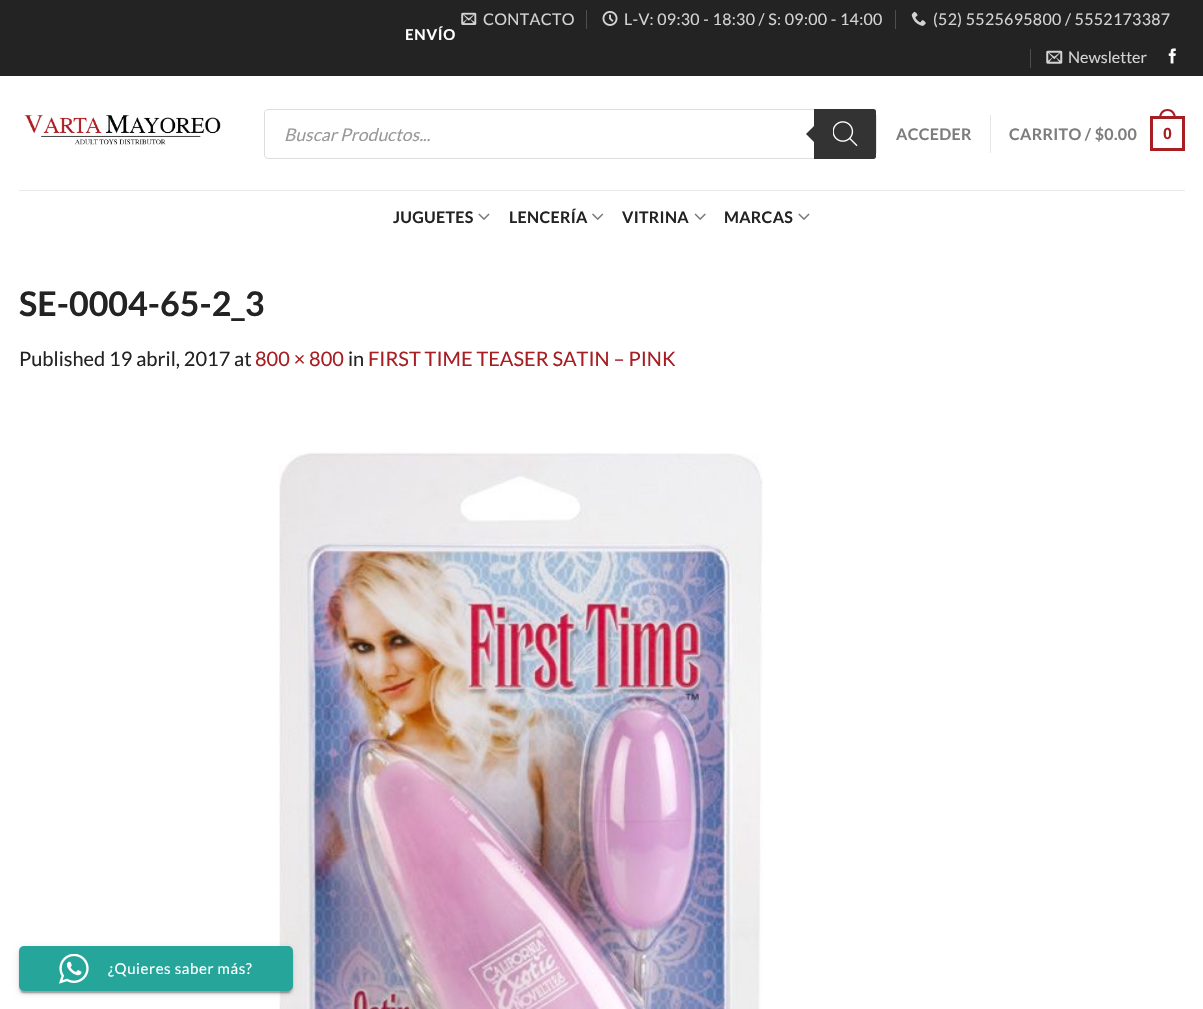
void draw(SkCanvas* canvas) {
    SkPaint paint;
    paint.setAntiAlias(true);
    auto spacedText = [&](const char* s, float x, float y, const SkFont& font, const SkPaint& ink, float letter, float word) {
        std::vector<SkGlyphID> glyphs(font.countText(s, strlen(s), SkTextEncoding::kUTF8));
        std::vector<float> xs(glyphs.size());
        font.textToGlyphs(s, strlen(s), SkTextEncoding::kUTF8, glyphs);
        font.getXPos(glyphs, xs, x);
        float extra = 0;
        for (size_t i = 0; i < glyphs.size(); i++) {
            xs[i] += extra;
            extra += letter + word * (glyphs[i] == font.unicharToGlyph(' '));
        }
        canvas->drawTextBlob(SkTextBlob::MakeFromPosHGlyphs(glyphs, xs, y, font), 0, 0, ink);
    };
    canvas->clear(0xFFFFFFFF);
    paint.setColor(0xFF232323);
    canvas->drawRect(SkRect::MakeXYWH(0, 0, 1203, 76), paint);
    SkFont font1(fontMgr->matchFamilyStyle("Lato", SkFontStyle::Bold()), 15);
    font1.setSubpixel(true);
    paint.setColor(0xFFFFFFFF);
    spacedText("ENVÍO", 405, 40, font1, paint, 0.75f, 0);
    canvas->drawImageRect(SkImages::DeferredFromEncodedData(SkData::MakeFromFileName("img1.png")), SkRect::MakeXYWH(461, 12, 16, 13), SkSamplingOptions());
    SkFont font2(fontMgr->matchFamilyStyle("Lato", SkFontStyle::Normal()), 16);
    font2.setSubpixel(true);
    paint.setColor(0xFFD3D3D3);
    spacedText("CONTACTO", 483, 25, font2, paint, 0.3f, 0);
    paint.setColor(0xFF4F4F4F);
    canvas->drawRect(SkRect::MakeXYWH(586, 10, 1, 19), paint);
    canvas->drawImageRect(SkImages::DeferredFromEncodedData(SkData::MakeFromFileName("img2.png")), SkRect::MakeXYWH(602, 11, 16, 15), SkSamplingOptions());
    paint.setColor(0xFFD3D3D3);
    spacedText("L-V: 09:30 - 18:30 / S: 09:00 - 14:00", 624, 25, font2, paint, 0.3f, 0);
    paint.setColor(0xFF4F4F4F);
    canvas->drawRect(SkRect::MakeXYWH(895, 10, 1, 19), paint);
    canvas->drawImageRect(SkImages::DeferredFromEncodedData(SkData::MakeFromFileName("img3.png")), SkRect::MakeXYWH(911, 11, 15, 15), SkSamplingOptions());
    paint.setColor(0xFFD3D3D3);
    spacedText("(52) 5525695800 / 5552173387", 933, 25, font2, paint, 0.3f, 0);
    paint.setColor(0xFF4F4F4F);
    canvas->drawRect(SkRect::MakeXYWH(1030, 49, 1, 19), paint);
    canvas->drawImageRect(SkImages::DeferredFromEncodedData(SkData::MakeFromFileName("img4.png")), SkRect::MakeXYWH(1046, 50, 17, 14), SkSamplingOptions());
    paint.setColor(0xFFD3D3D3);
    canvas->drawString("Newsletter", 1068, 63, font2, paint);
    canvas->drawImageRect(SkImages::DeferredFromEncodedData(SkData::MakeFromFileName("img5.png")), SkRect::MakeXYWH(1168, 48, 8, 16), SkSamplingOptions());
    canvas->drawImageRect(SkImages::DeferredFromEncodedData(SkData::MakeFromFileName("img6.png")), SkRect::MakeXYWH(24, 115, 197, 30), SkSamplingOptions());
    paint.setStyle(SkPaint::kStroke_Style);
    paint.setStrokeWidth(1);
    paint.setColor(0xFFDDDDDD);
    canvas->drawRoundRect(SkRect::MakeXYWH(264.5f, 109.5f, 611, 49), 3.5f, 3.5f, paint);
    SkFont font3(fontMgr->matchFamilyStyle("Lato", SkFontStyle::Italic()), 17.5f);
    font3.setSubpixel(true);
    paint.setStyle(SkPaint::kFill_Style);
    paint.setColor(0xFF999999);
    canvas->drawString("Buscar Productos...", 284, 141, font3, paint);
    paint.setColor(0xFF333333);
    canvas->drawPath(SkPathBuilder().moveTo(814, 109).lineTo(873.5f, 109).cubicTo(875, 109, 876, 110, 876, 111.5f).lineTo(876, 156.5f).cubicTo(876, 158, 875, 159, 873.5f, 159).lineTo(814, 159).close().detach(), paint);
    canvas->drawPath(SkPathBuilder().moveTo(816, 124).lineTo(816, 144).lineTo(806, 134).close().detach(), paint);
    canvas->drawImageRect(SkImages::DeferredFromEncodedData(SkData::MakeFromFileName("img7.png")), SkRect::MakeXYWH(833, 121, 25, 26), SkSamplingOptions());
    paint.setColor(0xFFE6E6E6);
    canvas->drawRect(SkRect::MakeXYWH(876, 115, 1, 38), paint);
    SkFont font4(fontMgr->matchFamilyStyle("Lato", SkFontStyle::Bold()), 16);
    font4.setSubpixel(true);
    paint.setColor(0xFF7D7D7D);
    spacedText("ACCEDER", 896, 140, font4, paint, 0.3f, 0);
    paint.setColor(0xFFE6E6E6);
    canvas->drawRect(SkRect::MakeXYWH(990, 115, 1, 38), paint);
    paint.setColor(0xFF7D7D7D);
    spacedText("CARRITO / $0.00", 1009, 140, font4, paint, 0.3f, 0);
    paint.setStyle(SkPaint::kStroke_Style);
    paint.setStrokeWidth(3);
    paint.setColor(0xFFA71E23);
    canvas->drawRect(SkRect::MakeXYWH(1151.5f, 117.5f, 32, 32), paint);
    paint.setStyle(SkPaint::kFill_Style);
    canvas->drawPath(SkPathBuilder(SkPathFillType::kEvenOdd).moveTo(1167.5f, 109).cubicTo(1173.5f, 109, 1176, 113.5f, 1176, 119).lineTo(1159, 119).cubicTo(1159, 113.5f, 1161.5f, 109, 1167.5f, 109).close().moveTo(1167.5f, 111).cubicTo(1172, 111, 1174, 115, 1174, 119).lineTo(1161, 119).cubicTo(1161, 115, 1163, 111, 1167.5f, 111).close().detach(), paint);
    SkFont font5(fontMgr->matchFamilyStyle("Liberation Sans", SkFontStyle::Bold()), 16);
    font5.setSubpixel(true);
    spacedText("0", 1163, 139, font5, paint, 0.3f, 0);
    paint.setColor(0xFFE9E9E9);
    canvas->drawRect(SkRect::MakeXYWH(19, 190, 1166, 1), paint);
    paint.setColor(0xFF232323);
    spacedText("JUGUETES", 393, 223, font4, paint, 0.3f, 0);
    canvas->drawImageRect(SkImages::DeferredFromEncodedData(SkData::MakeFromFileName("img8.png")), SkRect::MakeXYWH(478, 213, 12, 7), SkSamplingOptions());
    spacedText("LENCERÍA", 509, 223, font4, paint, 0.3f, 0);
    canvas->drawImageRect(SkImages::DeferredFromEncodedData(SkData::MakeFromFileName("img9.png")), SkRect::MakeXYWH(592, 213, 12, 7), SkSamplingOptions());
    spacedText("VITRINA", 622, 223, font4, paint, 0.3f, 0);
    canvas->drawImageRect(SkImages::DeferredFromEncodedData(SkData::MakeFromFileName("img10.png")), SkRect::MakeXYWH(694, 213, 12, 7), SkSamplingOptions());
    spacedText("MARCAS", 724, 223, font4, paint, 0.3f, 0);
    canvas->drawImageRect(SkImages::DeferredFromEncodedData(SkData::MakeFromFileName("img8.png")), SkRect::MakeXYWH(798, 213, 12, 7), SkSamplingOptions());
    SkFont font6(fontMgr->matchFamilyStyle("Lato", SkFontStyle::Bold()), 34);
    font6.setSubpixel(true);
    canvas->drawString("SE-0004-65-2_3", 19, 316, font6, paint);
    SkFont font7(fontMgr->matchFamilyStyle("Lato", SkFontStyle::Normal()), 20);
    font7.setSubpixel(true);
    canvas->drawString("Published 19 abril, 2017 at", 19, 366, font7, paint);
    paint.setColor(0xFFA71E23);
    canvas->drawString("800 × 800", 255, 366, font7, paint);
    paint.setColor(0xFF232323);
    canvas->drawString("in", 348, 366, font7, paint);
    paint.setColor(0xFFA71E23);
    canvas->drawString("FIRST TIME TEASER SATIN – PINK", 368, 366, font7, paint);
    canvas->drawImageRect(SkImages::DeferredFromEncodedData(SkData::MakeFromFileName("img11.png")), SkRect::MakeXYWH(279, 452, 484, 557), SkSamplingOptions());
    paint.setColor(0x33000000);
    paint.setMaskFilter(SkMaskFilter::MakeBlur(kNormal_SkBlurStyle, 0.5f));
    canvas->drawRoundRect(SkRect::MakeXYWH(21, 953, 269, 40), 2.5f, 2.5f, paint);
    paint.setMaskFilter(nullptr);
    paint.setColor(0x1F000000);
    paint.setMaskFilter(SkMaskFilter::MakeBlur(kNormal_SkBlurStyle, 3));
    canvas->drawRoundRect(SkRect::MakeXYWH(19, 948, 274, 45), 5, 5, paint);
    paint.setMaskFilter(nullptr);
    paint.setColor(0x24000000);
    paint.setMaskFilter(SkMaskFilter::MakeBlur(kNormal_SkBlurStyle, 1));
    canvas->drawRoundRect(SkRect::MakeXYWH(19, 949, 274, 45), 5, 5, paint);
    paint.setMaskFilter(nullptr);
    paint.setColor(0xFF26A69A);
    canvas->drawRoundRect(SkRect::MakeXYWH(19, 946, 274, 45), 5, 5, paint);
    canvas->drawImageRect(SkImages::DeferredFromEncodedData(SkData::MakeFromFileName("img12.png")), SkRect::MakeXYWH(59, 954, 30, 30), SkSamplingOptions());
    SkFont font8(fontMgr->matchFamilyStyle("Lato", SkFontStyle::Normal()), 15);
    font8.setSubpixel(true);
    paint.setColor(0xFFFFFFFF);
    spacedText("¿Quieres saber más?", 108, 974, font8, paint, 0.6f, 0);
}
